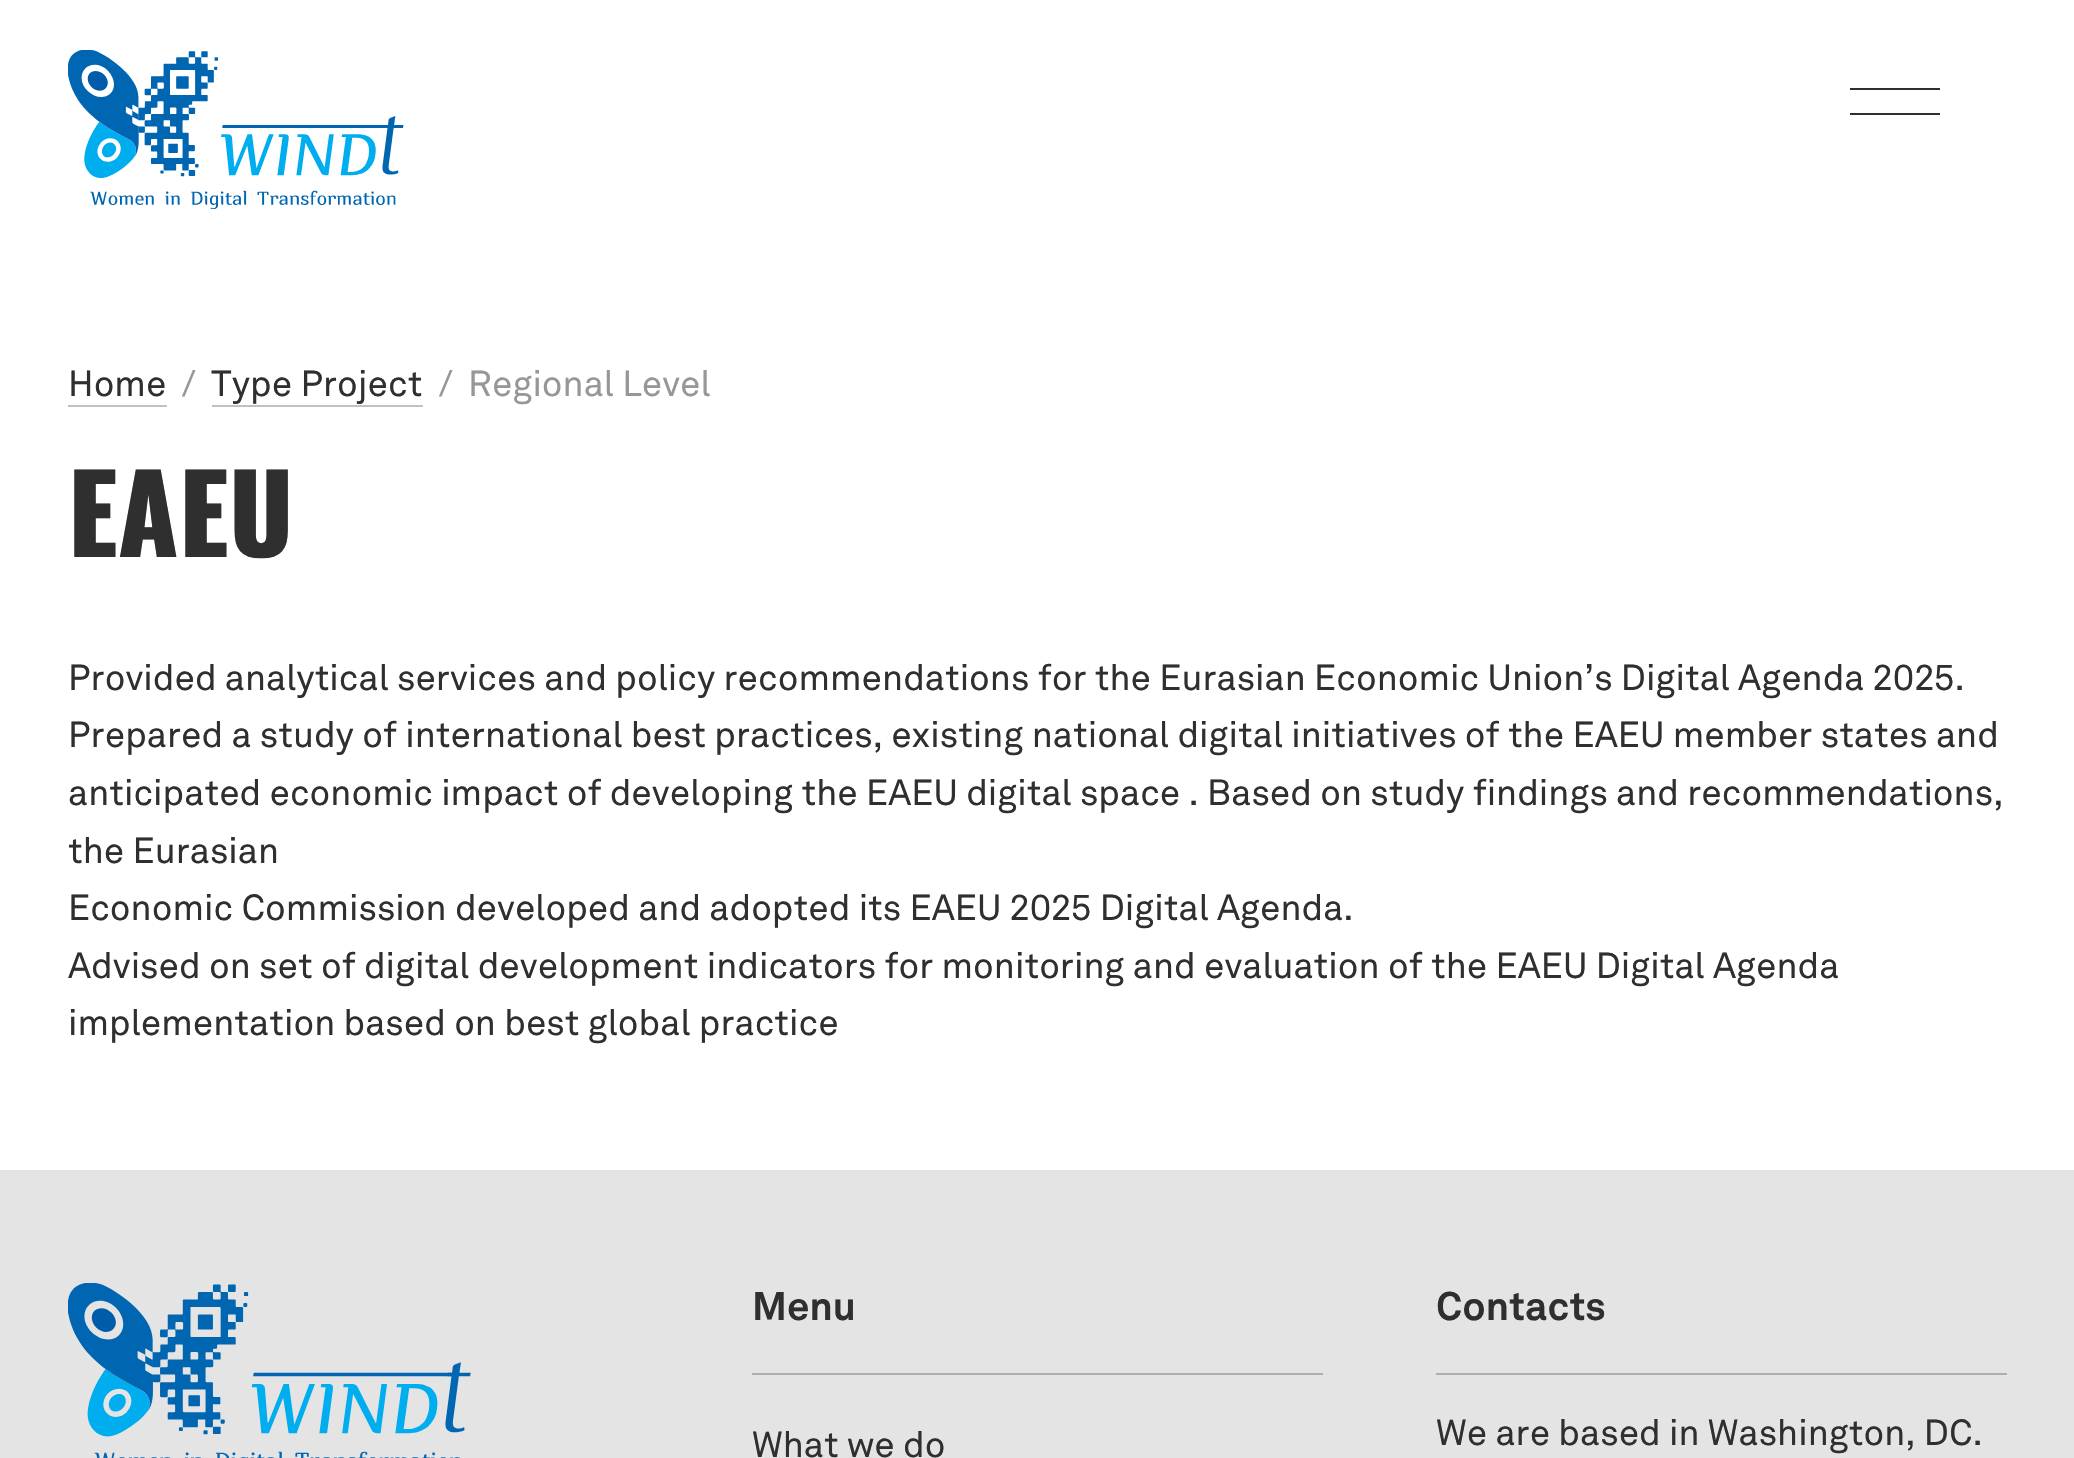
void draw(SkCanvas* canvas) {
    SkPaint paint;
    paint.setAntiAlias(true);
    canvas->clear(0xFFFFFFFF);
    canvas->drawImageRect(SkImages::DeferredFromEncodedData(SkData::MakeFromFileName("img1.png")), SkRect::MakeXYWH(68, 50, 336, 159), SkSamplingOptions());
    paint.setColor(0xFF2F2F2F);
    canvas->drawRect(SkRect::MakeXYWH(1850, 88, 90, 2), paint);
    canvas->drawRect(SkRect::MakeXYWH(1850, 113, 90, 2), paint);
    SkFont font1(fontMgr->matchFamilyStyle("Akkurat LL", SkFontStyle::Normal()), 36);
    font1.setSubpixel(true);
    canvas->drawString("Home", 68, 396, font1, paint);
    paint.setColor(0xFFC1C1C1);
    canvas->drawRect(SkRect::MakeXYWH(68, 405, 99, 2), paint);
    paint.setColor(0xFF979797);
    canvas->drawString("/", 181, 396, font1, paint);
    paint.setColor(0xFF2F2F2F);
    canvas->drawString("Type Project", 211, 396, font1, paint);
    paint.setColor(0xFFC1C1C1);
    canvas->drawRect(SkRect::MakeXYWH(212, 405, 211, 2), paint);
    paint.setColor(0xFF979797);
    canvas->drawString("/", 438, 396, font1, paint);
    canvas->drawString("Regional Level", 468, 396, font1, paint);
    SkFont font2(fontMgr->matchFamilyStyle("Oswald", SkFontStyle(900, SkFontStyle::kNormal_Width, SkFontStyle::kUpright_Slant)), 108);
    font2.setSubpixel(true);
    paint.setColor(0xFF2F2F2F);
    canvas->drawString("EAEU", 68, 557, font2, paint);
    canvas->drawString("Provided analytical services and policy recommendations for the Eurasian Economic Union’s Digital Agenda 2025.", 68, 690, font1, paint);
    canvas->drawString("Prepared a study of international best practices, existing national digital initiatives of the EAEU member states and", 68, 747, font1, paint);
    canvas->drawString("anticipated economic impact of developing the EAEU digital space . Based on study findings and recommendations,", 68, 805, font1, paint);
    canvas->drawString("the Eurasian", 68, 863, font1, paint);
    canvas->drawString("Economic Commission developed and adopted its EAEU 2025 Digital Agenda.", 68, 920, font1, paint);
    canvas->drawString("Advised on set of digital development indicators for monitoring and evaluation of the EAEU Digital Agenda", 68, 978, font1, paint);
    canvas->drawString("implementation based on best global practice", 68, 1035, font1, paint);
    paint.setColor(0xFFE4E4E4);
    canvas->drawRect(SkRect::MakeXYWH(0, 1170, 2074, 288), paint);
    canvas->drawImageRect(SkImages::DeferredFromEncodedData(SkData::MakeFromFileName("img2.png")), SkRect::MakeXYWH(68, 1283, 403, 175), SkSamplingOptions());
    paint.setColor(0xFFAEAEAE);
    canvas->drawRect(SkRect::MakeXYWH(752, 1373, 571, 2), paint);
    SkFont font3(fontMgr->matchFamilyStyle("Akkurat LL", SkFontStyle::Bold()), 39.5f);
    font3.setSubpixel(true);
    paint.setColor(0xFF2F2F2F);
    canvas->drawString("Menu", 752, 1320, font3, paint);
    canvas->drawString("What we do", 752, 1457, font1, paint);
    paint.setColor(0xFFAEAEAE);
    canvas->drawRect(SkRect::MakeXYWH(1436, 1373, 571, 2), paint);
    paint.setColor(0xFF2F2F2F);
    canvas->drawString("Contacts", 1436, 1320, font3, paint);
    canvas->drawString("We are based in Washington, DC.", 1436, 1445, font1, paint);
}
